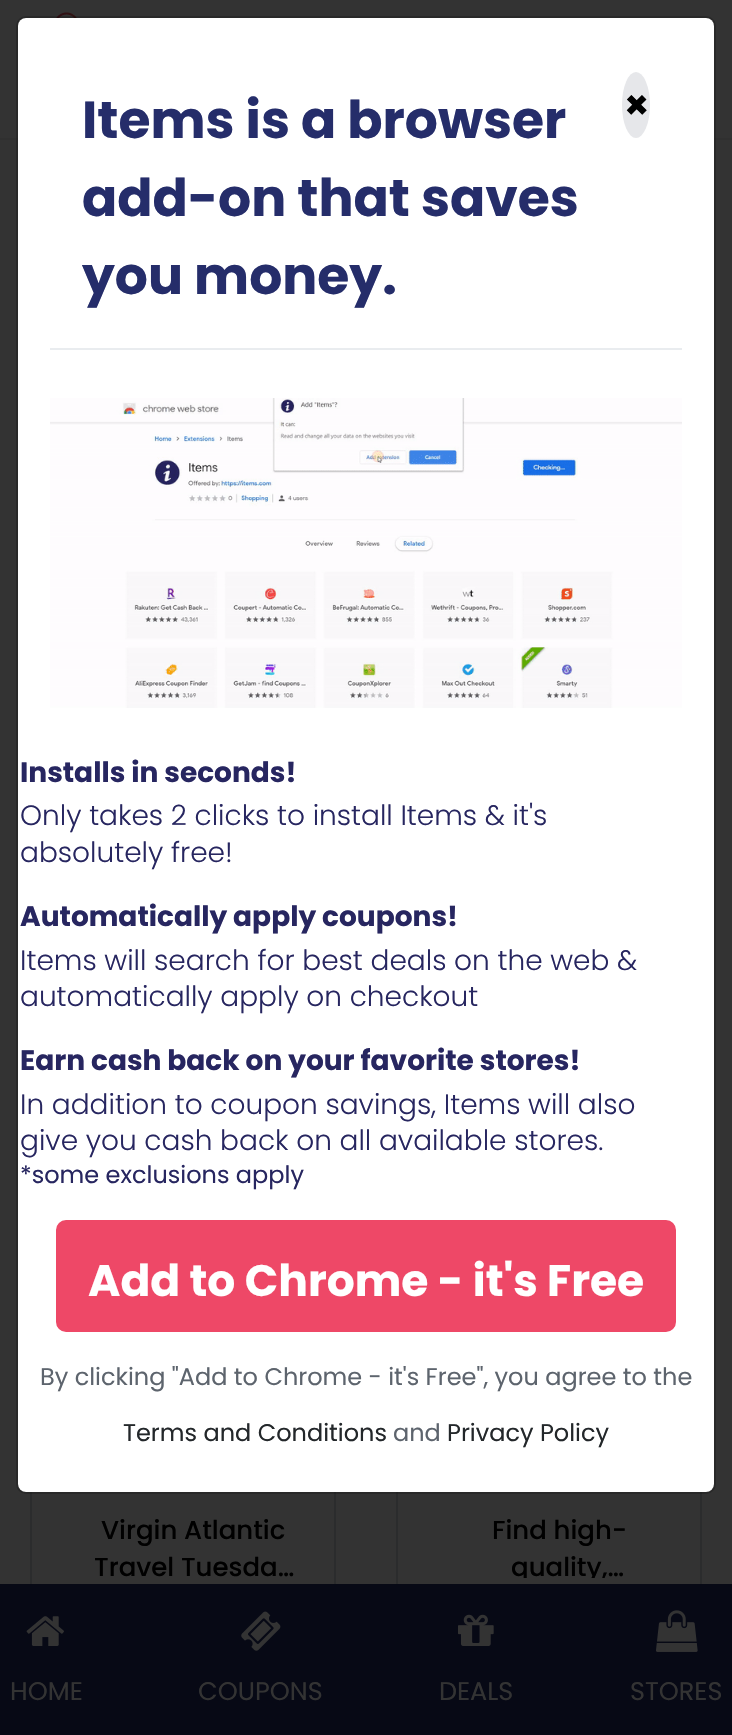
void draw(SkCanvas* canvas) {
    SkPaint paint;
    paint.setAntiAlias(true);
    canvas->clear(0xFF333333);
    paint.setColor(0xFF303030);
    canvas->drawRect(SkRect::MakeXYWH(0, 138, 732, 2), paint);
    canvas->drawImageRect(SkImages::DeferredFromEncodedData(SkData::MakeFromFileName("img1.png")), SkRect::MakeXYWH(56, 12, 21, 6), SkSamplingOptions());
    paint.setStyle(SkPaint::kStroke_Style);
    paint.setStrokeWidth(2);
    paint.setColor(0xFF2B2C2D);
    canvas->drawRect(SkRect::MakeXYWH(31, 1377, 304, 348), paint);
    canvas->drawRect(SkRect::MakeXYWH(397, 1377, 304, 348), paint);
    paint.setStyle(SkPaint::kFill_Style);
    paint.setColor(0xFFFFFFFF);
    canvas->drawRoundRect(SkRect::MakeXYWH(18, 18, 696, 1474), 8, 8, paint);
    paint.setStyle(SkPaint::kStroke_Style);
    paint.setColor(0x33000000);
    canvas->drawRoundRect(SkRect::MakeXYWH(17, 17, 698, 1476), 9, 9, paint);
    paint.setStyle(SkPaint::kFill_Style);
    paint.setColor(0xFFE9ECEF);
    canvas->drawRect(SkRect::MakeXYWH(50, 348, 632, 2), paint);
    SkFont font1(fontMgr->matchFamilyStyle("Poppins", SkFontStyle::Bold()), 52);
    font1.setSubpixel(true);
    paint.setColor(0xFF252D6A);
    canvas->drawString("Items is a browser", 82, 138, font1, paint);
    canvas->drawString("add-on that saves", 82, 216, font1, paint);
    canvas->drawString("you money.", 82, 294, font1, paint);
    paint.setColor(0xFFE6E7EA);
    canvas->drawOval(SkRect::MakeXYWH(622, 72, 28, 66), paint);
    SkFont font2(fontMgr->matchFamilyStyle("Poppins", SkFontStyle::Bold()), 40);
    font2.setSubpixel(true);
    paint.setColor(0xFF000000);
    canvas->drawString("×", 624, 119, font2, paint);
    canvas->drawImageRect(SkImages::DeferredFromEncodedData(SkData::MakeFromFileName("img2.png")), SkRect::MakeXYWH(50, 398, 632, 310), SkSamplingOptions());
    SkFont font3(fontMgr->matchFamilyStyle("Poppins", SkFontStyle::Bold()), 28);
    font3.setSubpixel(true);
    paint.setColor(0xFF272660);
    canvas->drawString("Installs in seconds!", 20, 782, font3, paint);
    SkFont font4(fontMgr->matchFamilyStyle("Poppins", SkFontStyle(300, SkFontStyle::kNormal_Width, SkFontStyle::kUpright_Slant)), 28);
    font4.setSubpixel(true);
    canvas->drawString("Only takes 2 clicks to install Items & it's", 20, 825, font4, paint);
    canvas->drawString("absolutely free!", 20, 862, font4, paint);
    canvas->drawString("Automatically apply coupons!", 20, 926, font3, paint);
    canvas->drawString("Items will search for best deals on the web &", 20, 970, font4, paint);
    canvas->drawString("automatically apply on checkout", 20, 1006, font4, paint);
    canvas->drawString("Earn cash back on your favorite stores!", 20, 1070, font3, paint);
    canvas->drawString("In addition to coupon savings, Items will also", 20, 1114, font4, paint);
    canvas->drawString("give you cash back on all available stores.", 20, 1150, font4, paint);
    SkFont font5(fontMgr->matchFamilyStyle("Poppins", SkFontStyle::Normal()), 24);
    font5.setSubpixel(true);
    canvas->drawString("*some exclusions apply", 20, 1183, font5, paint);
    paint.setColor(0xFFEE4867);
    canvas->drawRoundRect(SkRect::MakeXYWH(57, 1221, 618, 110), 9, 9, paint);
    paint.setStyle(SkPaint::kStroke_Style);
    canvas->drawRoundRect(SkRect::MakeXYWH(57, 1221, 618, 110), 9, 9, paint);
    SkFont font6(fontMgr->matchFamilyStyle("Poppins", SkFontStyle::Bold()), 44);
    font6.setSubpixel(true);
    paint.setStyle(SkPaint::kFill_Style);
    paint.setColor(0xFFFFFFFF);
    canvas->drawString("Add to Chrome - it's Free", 88, 1296, font6, paint);
    paint.setColor(0xFF5D646D);
    canvas->drawString("By clicking \"Add to Chrome - it's Free\", you agree to the", 40, 1385, font5, paint);
    paint.setColor(0xFF23272A);
    canvas->drawString("Terms and Conditions", 123, 1441, font5, paint);
    paint.setColor(0xFF5D646D);
    canvas->drawString("and", 393, 1441, font5, paint);
    paint.setColor(0xFF23272A);
    canvas->drawString("Privacy Policy", 447, 1441, font5, paint);
    SkFont font7(fontMgr->matchFamilyStyle("Poppins", SkFontStyle(500, SkFontStyle::kNormal_Width, SkFontStyle::kUpright_Slant)), 26);
    font7.setSubpixel(true);
    paint.setColor(0xFF000000);
    canvas->drawString("Virgin Atlantic", 101, 1539, font7, paint);
    canvas->drawString("Travel Tuesda…", 94, 1576, font7, paint);
    canvas->drawString("Find high-", 492, 1539, font7, paint);
    canvas->save();
    canvas->clipRect(SkRect::MakeXYWH(430, 1514, 238, 64));
    canvas->drawString("quality,…", 511, 1576, font7, paint);
    canvas->restore();
    paint.setColor(0xFF070915);
    canvas->drawRect(SkRect::MakeXYWH(0, 1584, 732, 151), paint);
    canvas->drawImageRect(SkImages::DeferredFromEncodedData(SkData::MakeFromFileName("img3.png")), SkRect::MakeXYWH(26, 1616, 38, 30), SkSamplingOptions());
    SkFont font8(fontMgr->matchFamilyStyle("Poppins", SkFontStyle::Normal()), 25.5f);
    font8.setSubpixel(true);
    paint.setColor(0xFF333333);
    canvas->drawString("HOME", 10, 1700, font8, paint);
    canvas->drawImageRect(SkImages::DeferredFromEncodedData(SkData::MakeFromFileName("img4.png")), SkRect::MakeXYWH(241, 1611, 40, 40), SkSamplingOptions());
    canvas->drawString("COUPONS", 198, 1700, font8, paint);
    canvas->drawImageRect(SkImages::DeferredFromEncodedData(SkData::MakeFromFileName("img5.png")), SkRect::MakeXYWH(458, 1614, 36, 32), SkSamplingOptions());
    canvas->drawString("DEALS", 439, 1700, font8, paint);
    canvas->drawImageRect(SkImages::DeferredFromEncodedData(SkData::MakeFromFileName("img6.png")), SkRect::MakeXYWH(656, 1610, 42, 42), SkSamplingOptions());
    canvas->drawString("STORES", 630, 1700, font8, paint);
}
